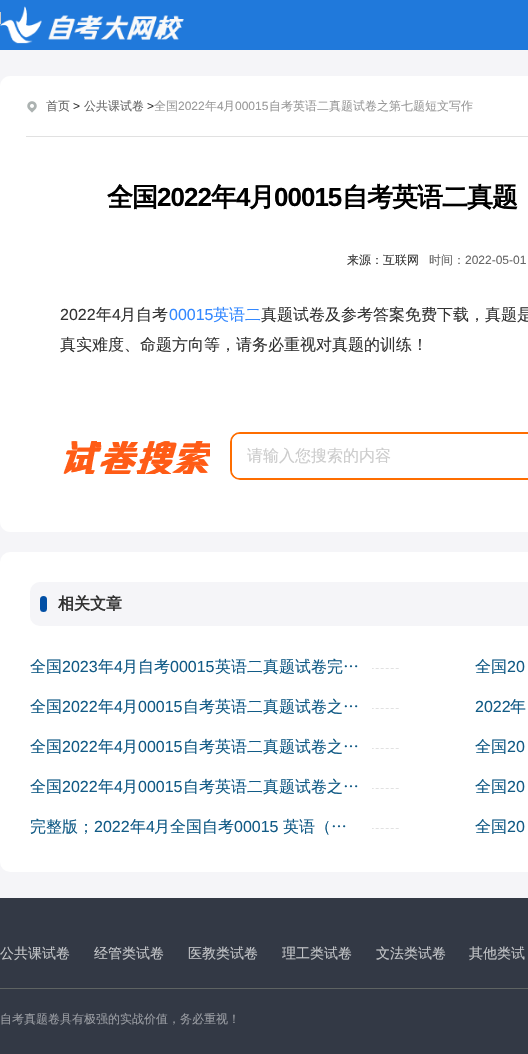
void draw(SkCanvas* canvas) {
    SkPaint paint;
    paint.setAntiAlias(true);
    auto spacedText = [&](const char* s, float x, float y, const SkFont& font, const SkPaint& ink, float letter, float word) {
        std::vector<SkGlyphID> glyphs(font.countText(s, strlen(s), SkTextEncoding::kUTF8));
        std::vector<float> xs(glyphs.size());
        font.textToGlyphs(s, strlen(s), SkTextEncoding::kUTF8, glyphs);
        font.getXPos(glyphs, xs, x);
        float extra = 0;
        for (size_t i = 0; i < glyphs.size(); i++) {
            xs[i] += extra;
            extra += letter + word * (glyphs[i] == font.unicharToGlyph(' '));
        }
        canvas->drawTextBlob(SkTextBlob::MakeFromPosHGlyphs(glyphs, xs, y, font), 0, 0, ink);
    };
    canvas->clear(0xFFF5F5F8);
    paint.setColor(0xFF2079DB);
    canvas->drawRect(SkRect::MakeXYWH(0, 0, 528, 50), paint);
    canvas->drawImageRect(SkImages::DeferredFromEncodedData(SkData::MakeFromFileName("img1.png")), SkRect::MakeXYWH(0, 6, 184, 38), SkSamplingOptions());
    paint.setColor(0xFFFFFFFF);
    canvas->drawPath(SkPathBuilder().moveTo(10, 76).lineTo(528, 76).cubicTo(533.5f, 76, 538, 80.5f, 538, 86).lineTo(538, 137).lineTo(0, 137).lineTo(0, 86).cubicTo(0, 80.5f, 4.5f, 76, 10, 76).close().detach(), paint);
    paint.setColor(0xFFE1E1E1);
    canvas->drawRect(SkRect::MakeXYWH(26, 136, 502, 1), paint);
    canvas->drawImageRect(SkImages::DeferredFromEncodedData(SkData::MakeFromFileName("img2.png")), SkRect::MakeXYWH(27, 101, 10, 12), SkSamplingOptions());
    SkFont font1(fontMgr->matchFamilyStyle("WenQuanYi Zen Hei", SkFontStyle(500, SkFontStyle::kNormal_Width, SkFontStyle::kUpright_Slant)), 12);
    font1.setSubpixel(true);
    paint.setColor(0xFF666666);
    canvas->drawString("首页", 46, 110, font1, paint);
    SkFont font2(fontMgr->matchFamilyStyle("Liberation Sans", SkFontStyle::Normal()), 12);
    font2.setSubpixel(true);
    paint.setColor(0xFF333333);
    canvas->drawString(">", 73, 110, font2, paint);
    paint.setColor(0xFF666666);
    canvas->drawString("公共课试卷", 84, 110, font1, paint);
    paint.setColor(0xFF333333);
    canvas->drawString(">", 147, 110, font2, paint);
    paint.setColor(0xFF999999);
    canvas->drawString("全国", 154, 110, font1, paint);
    canvas->drawString("2022", 178, 110, font2, paint);
    canvas->drawString("年", 205, 110, font1, paint);
    canvas->drawString("4", 217, 110, font2, paint);
    canvas->drawString("月", 223, 110, font1, paint);
    canvas->drawString("00015", 235, 110, font2, paint);
    canvas->drawString("自考英语二真题试卷之第七题短文写作", 269, 110, font1, paint);
    paint.setColor(0xFFFFFFFF);
    canvas->drawPath(SkPathBuilder().moveTo(0, 137).lineTo(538, 137).lineTo(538, 522).cubicTo(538, 527.5f, 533.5f, 532, 528, 532).lineTo(10, 532).cubicTo(4.5f, 532, 0, 527.5f, 0, 522).close().detach(), paint);
    SkFont font3(fontMgr->matchFamilyStyle("WenQuanYi Zen Hei", SkFontStyle::Bold()), 26);
    font3.setSubpixel(true);
    paint.setColor(0xFF000000);
    spacedText("全国", 107, 206, font3, paint, -1, 0);
    SkFont font4(fontMgr->matchFamilyStyle("Liberation Sans", SkFontStyle::Bold()), 26);
    font4.setSubpixel(true);
    spacedText("2022", 157, 206, font4, paint, -1, 0);
    spacedText("年", 211, 206, font3, paint, -1, 0);
    spacedText("4", 236, 206, font4, paint, -1, 0);
    spacedText("月", 249, 206, font3, paint, -1, 0);
    spacedText("00015", 274, 206, font4, paint, -1, 0);
    spacedText("自考英语二真题", 342, 206, font3, paint, -1, 0);
    paint.setColor(0xFFCCCCCC);
    canvas->drawRect(SkRect::MakeXYWH(0, 12, 1, 12), paint);
    paint.setColor(0xFF333333);
    canvas->drawString("来源：互联网", 347, 264, font1, paint);
    paint.setColor(0xFF666666);
    canvas->drawString("时间：", 429, 264, font1, paint);
    canvas->drawString("2022-05-01", 465, 264, font2, paint);
    SkFont font5(fontMgr->matchFamilyStyle("Liberation Sans", SkFontStyle::Normal()), 16);
    font5.setSubpixel(true);
    paint.setColor(0xFF333333);
    canvas->drawString("2022", 60, 320, font5, paint);
    SkFont font6(fontMgr->matchFamilyStyle("WenQuanYi Zen Hei", SkFontStyle(500, SkFontStyle::kNormal_Width, SkFontStyle::kUpright_Slant)), 16);
    font6.setSubpixel(true);
    canvas->drawString("年", 96, 320, font6, paint);
    canvas->drawString("4", 112, 320, font5, paint);
    canvas->drawString("月自考", 120, 320, font6, paint);
    paint.setColor(0xFF3388FF);
    canvas->drawString("00015", 169, 320, font5, paint);
    canvas->drawString("英语二", 213, 320, font6, paint);
    paint.setColor(0xFF333333);
    canvas->drawString("真题试卷及参考答案免费下载，真题是", 261, 320, font6, paint);
    canvas->drawString("真实难度、命题方向等，请务必重视对真题的训练！", 60, 350, font6, paint);
    canvas->drawImageRect(SkImages::DeferredFromEncodedData(SkData::MakeFromFileName("img3.png")), SkRect::MakeXYWH(63, 441, 147, 33), SkSamplingOptions());
    paint.setStyle(SkPaint::kStroke_Style);
    paint.setStrokeWidth(2);
    paint.setColor(0xFFFE6D00);
    canvas->drawRoundRect(SkRect::MakeXYWH(231, 433, 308, 46), 9, 9, paint);
    paint.setStyle(SkPaint::kFill_Style);
    paint.setColor(0xFFFFFFFF);
    canvas->drawPath(SkPathBuilder().moveTo(240, 434).lineTo(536, 434).lineTo(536, 478).lineTo(240, 478).cubicTo(235.5f, 478, 232, 474.5f, 232, 470).lineTo(232, 442).cubicTo(232, 437.5f, 235.5f, 434, 240, 434).close().detach(), paint);
    paint.setColor(0xFFCCCCCC);
    canvas->drawString("请输入您搜索的内容", 247, 461, font6, paint);
    paint.setColor(0xFFFFFFFF);
    canvas->drawRoundRect(SkRect::MakeXYWH(0, 552, 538, 320), 10, 10, paint);
    paint.setColor(0xFFF5F5F8);
    canvas->drawRoundRect(SkRect::MakeXYWH(30, 582, 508, 44), 10, 10, paint);
    paint.setColor(0xFF014FA5);
    canvas->drawRoundRect(SkRect::MakeXYWH(40, 596, 7, 16), 3.5f, 3.5f, paint);
    SkFont font7(fontMgr->matchFamilyStyle("WenQuanYi Zen Hei", SkFontStyle::Bold()), 16);
    font7.setSubpixel(true);
    paint.setColor(0xFF333333);
    canvas->drawString("相关文章", 58, 609, font7, paint);
    paint.setStyle(SkPaint::kStroke_Style);
    paint.setStrokeWidth(1);
    paint.setColor(0xFFE1E1E1);
    paint.setPathEffect(SkDashPathEffect::Make({{3, 2.01f}}, 0));
    canvas->drawPath(SkPathBuilder().moveTo(30, 668.5f).lineTo(399, 668.5f).detach(), paint);
    paint.setPathEffect(nullptr);
    paint.setStyle(SkPaint::kFill_Style);
    paint.setColor(0xFFFFFFFF);
    canvas->drawRect(SkRect::MakeXYWH(30, 668, 342, 1), paint);
    paint.setColor(0xFF125B86);
    canvas->drawString("全国", 30, 672, font6, paint);
    canvas->drawString("2023", 62, 672, font5, paint);
    canvas->drawString("年", 98, 672, font6, paint);
    canvas->drawString("4", 114, 672, font5, paint);
    canvas->drawString("月自考", 122, 672, font6, paint);
    canvas->drawString("00015", 170, 672, font5, paint);
    canvas->drawString("英语二真题试卷完…", 215, 672, font6, paint);
    canvas->drawString("全国", 475, 672, font6, paint);
    canvas->drawString("20", 507, 672, font5, paint);
    paint.setStyle(SkPaint::kStroke_Style);
    paint.setColor(0xFFE1E1E1);
    paint.setPathEffect(SkDashPathEffect::Make({{3, 2.01f}}, 0));
    canvas->drawPath(SkPathBuilder().moveTo(30, 708.5f).lineTo(399, 708.5f).detach(), paint);
    paint.setPathEffect(nullptr);
    paint.setStyle(SkPaint::kFill_Style);
    paint.setColor(0xFFFFFFFF);
    canvas->drawRect(SkRect::MakeXYWH(30, 708, 342, 1), paint);
    paint.setColor(0xFF125B86);
    canvas->drawString("全国", 30, 712, font6, paint);
    canvas->drawString("2022", 62, 712, font5, paint);
    canvas->drawString("年", 98, 712, font6, paint);
    canvas->drawString("4", 114, 712, font5, paint);
    canvas->drawString("月", 122, 712, font6, paint);
    canvas->drawString("00015", 138, 712, font5, paint);
    canvas->drawString("自考英语二真题试卷之…", 183, 712, font6, paint);
    canvas->drawString("2022", 475, 712, font5, paint);
    canvas->drawString("年", 510, 712, font6, paint);
    paint.setStyle(SkPaint::kStroke_Style);
    paint.setColor(0xFFE1E1E1);
    paint.setPathEffect(SkDashPathEffect::Make({{3, 2.01f}}, 0));
    canvas->drawPath(SkPathBuilder().moveTo(30, 748.5f).lineTo(399, 748.5f).detach(), paint);
    paint.setPathEffect(nullptr);
    paint.setStyle(SkPaint::kFill_Style);
    paint.setColor(0xFFFFFFFF);
    canvas->drawRect(SkRect::MakeXYWH(30, 748, 342, 1), paint);
    paint.setColor(0xFF125B86);
    canvas->drawString("全国", 30, 752, font6, paint);
    canvas->drawString("2022", 62, 752, font5, paint);
    canvas->drawString("年", 98, 752, font6, paint);
    canvas->drawString("4", 114, 752, font5, paint);
    canvas->drawString("月", 122, 752, font6, paint);
    canvas->drawString("00015", 138, 752, font5, paint);
    canvas->drawString("自考英语二真题试卷之…", 183, 752, font6, paint);
    canvas->drawString("全国", 475, 752, font6, paint);
    canvas->drawString("20", 507, 752, font5, paint);
    paint.setStyle(SkPaint::kStroke_Style);
    paint.setColor(0xFFE1E1E1);
    paint.setPathEffect(SkDashPathEffect::Make({{3, 2.01f}}, 0));
    canvas->drawPath(SkPathBuilder().moveTo(30, 788.5f).lineTo(399, 788.5f).detach(), paint);
    paint.setPathEffect(nullptr);
    paint.setStyle(SkPaint::kFill_Style);
    paint.setColor(0xFFFFFFFF);
    canvas->drawRect(SkRect::MakeXYWH(30, 788, 342, 1), paint);
    paint.setColor(0xFF125B86);
    canvas->drawString("全国", 30, 792, font6, paint);
    canvas->drawString("2022", 62, 792, font5, paint);
    canvas->drawString("年", 98, 792, font6, paint);
    canvas->drawString("4", 114, 792, font5, paint);
    canvas->drawString("月", 122, 792, font6, paint);
    canvas->drawString("00015", 138, 792, font5, paint);
    canvas->drawString("自考英语二真题试卷之…", 183, 792, font6, paint);
    canvas->drawString("全国", 475, 792, font6, paint);
    canvas->drawString("20", 507, 792, font5, paint);
    paint.setStyle(SkPaint::kStroke_Style);
    paint.setColor(0xFFE1E1E1);
    paint.setPathEffect(SkDashPathEffect::Make({{3, 2.01f}}, 0));
    canvas->drawPath(SkPathBuilder().moveTo(30, 828.5f).lineTo(399, 828.5f).detach(), paint);
    paint.setPathEffect(nullptr);
    paint.setStyle(SkPaint::kFill_Style);
    paint.setColor(0xFFFFFFFF);
    canvas->drawRect(SkRect::MakeXYWH(30, 828, 342, 1), paint);
    paint.setColor(0xFF125B86);
    canvas->drawString("完整版；", 30, 832, font6, paint);
    canvas->drawString("2022", 94, 832, font5, paint);
    canvas->drawString("年", 130, 832, font6, paint);
    canvas->drawString("4", 146, 832, font5, paint);
    canvas->drawString("月全国自考", 154, 832, font6, paint);
    canvas->drawString("00015", 234, 832, font5, paint);
    canvas->drawString("英语（…", 283, 832, font6, paint);
    canvas->drawString("全国", 475, 832, font6, paint);
    canvas->drawString("20", 507, 832, font5, paint);
    paint.setColor(0xFF333945);
    canvas->drawRect(SkRect::MakeXYWH(0, 898, 528, 156), paint);
    paint.setColor(0xFF5E6362);
    canvas->drawRect(SkRect::MakeXYWH(0, 988, 528, 1), paint);
    SkFont font8(fontMgr->matchFamilyStyle("WenQuanYi Zen Hei", SkFontStyle(500, SkFontStyle::kNormal_Width, SkFontStyle::kUpright_Slant)), 14);
    font8.setSubpixel(true);
    paint.setColor(0xFFC2C4C7);
    canvas->drawString("公共课试卷", 0, 958, font8, paint);
    canvas->drawString("经管类试卷", 94, 958, font8, paint);
    canvas->drawString("医教类试卷", 188, 958, font8, paint);
    canvas->drawString("理工类试卷", 282, 958, font8, paint);
    canvas->drawString("文法类试卷", 376, 958, font8, paint);
    canvas->drawString("其他类试", 469, 958, font8, paint);
    paint.setColor(0xFF999CA2);
    canvas->drawString("自考真题卷具有极强的实战价值，务必重视！", 0, 1023, font1, paint);
}
